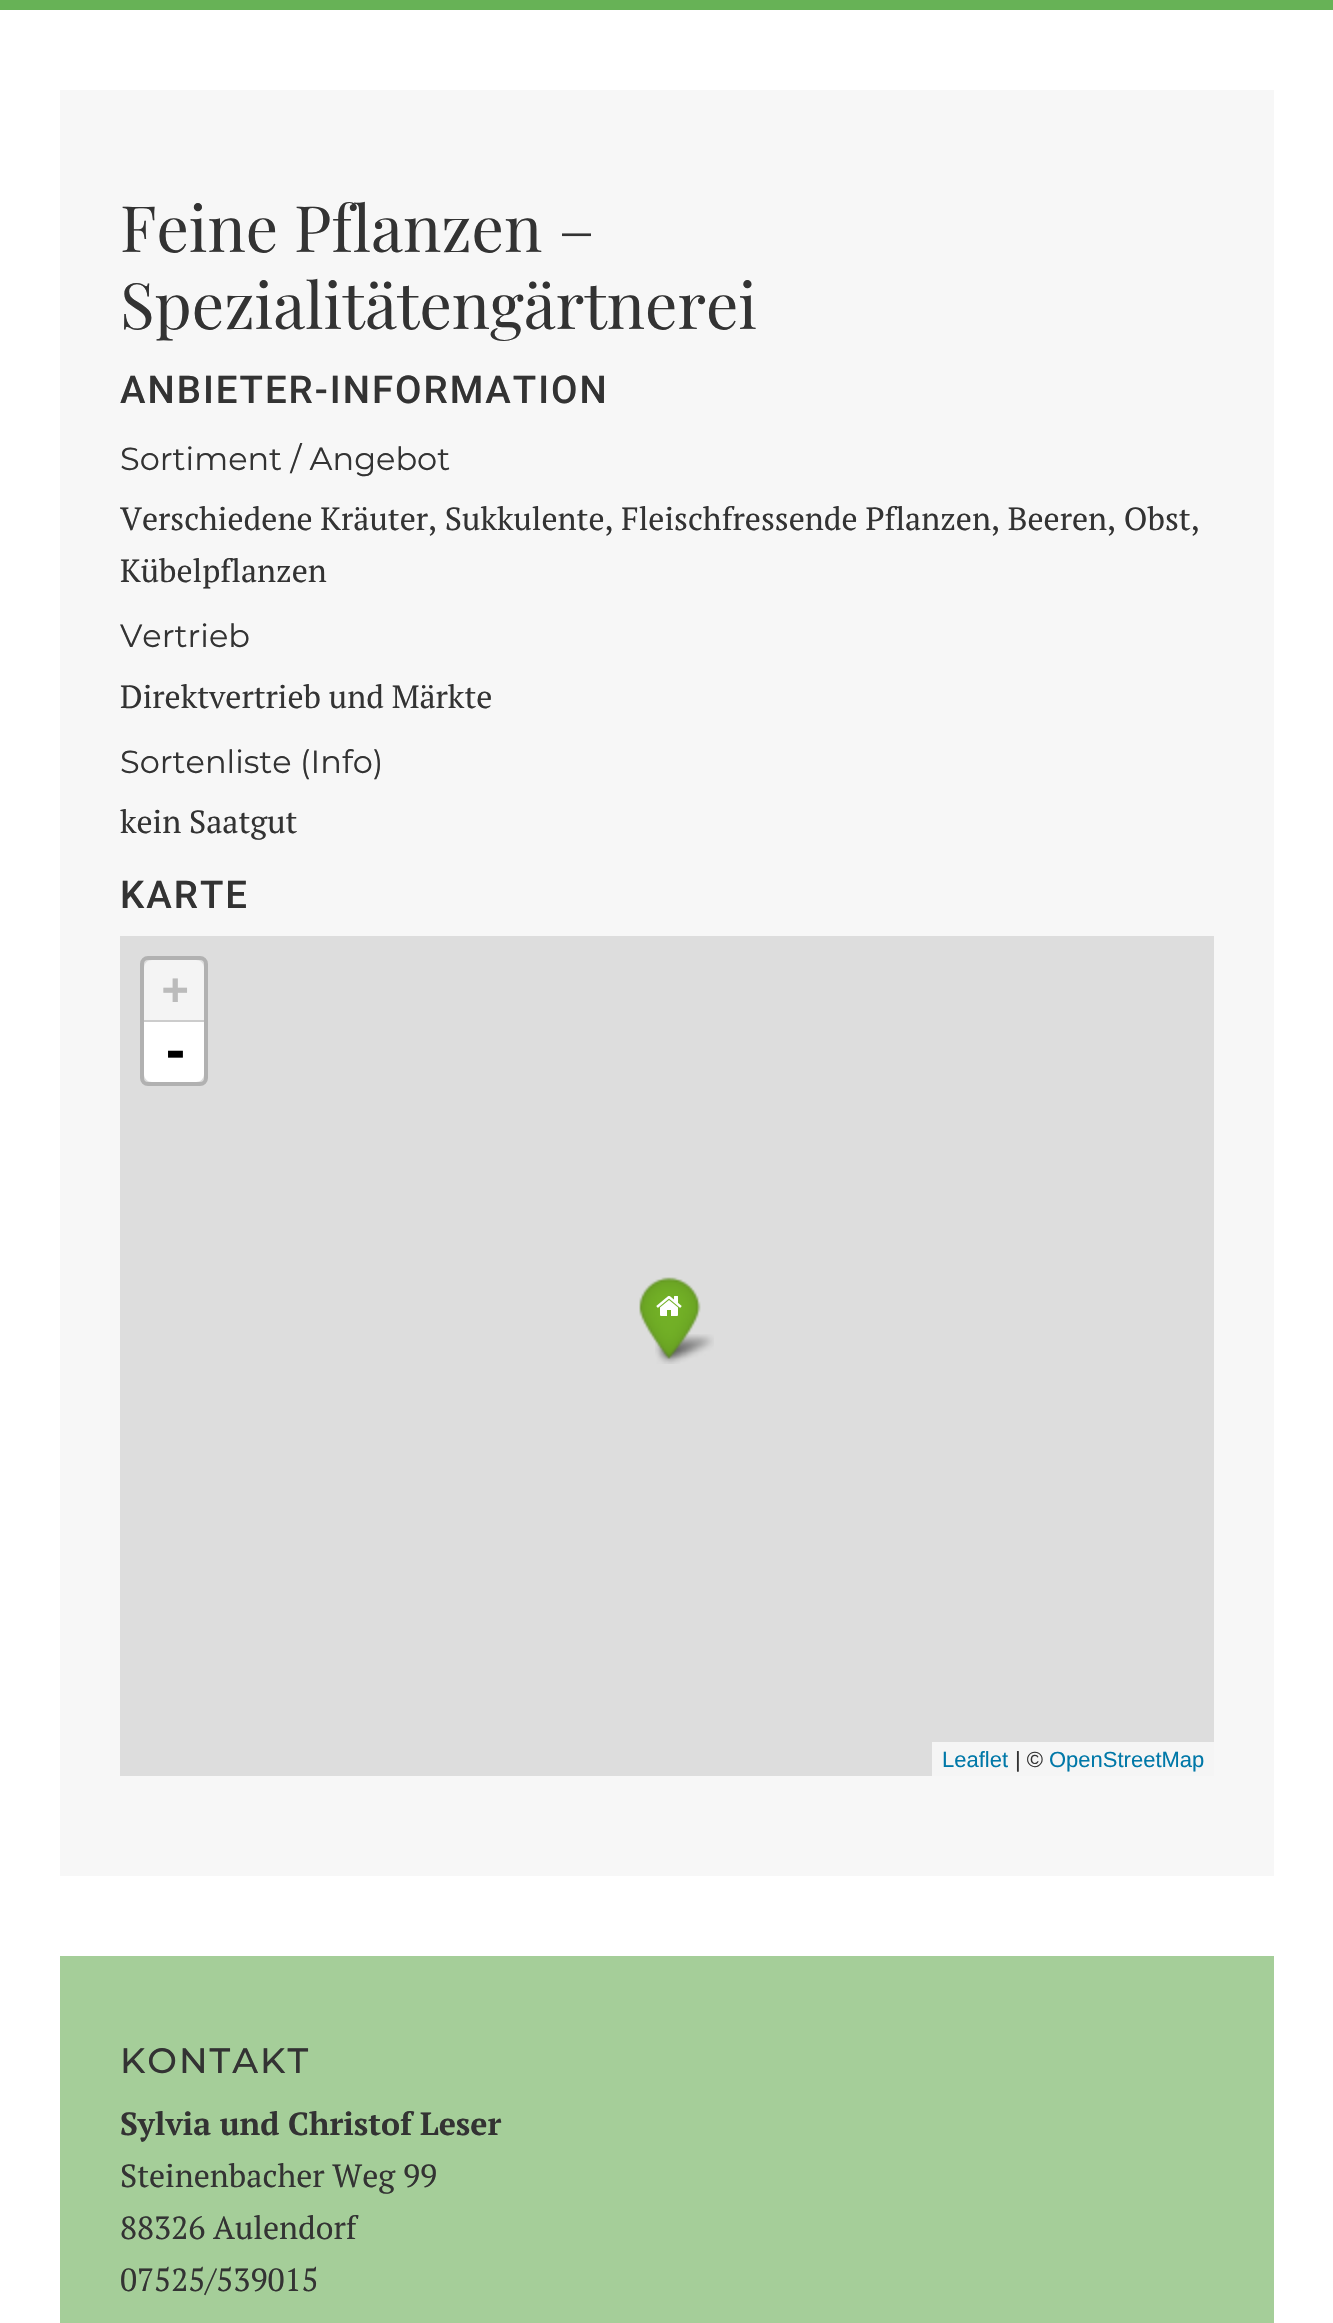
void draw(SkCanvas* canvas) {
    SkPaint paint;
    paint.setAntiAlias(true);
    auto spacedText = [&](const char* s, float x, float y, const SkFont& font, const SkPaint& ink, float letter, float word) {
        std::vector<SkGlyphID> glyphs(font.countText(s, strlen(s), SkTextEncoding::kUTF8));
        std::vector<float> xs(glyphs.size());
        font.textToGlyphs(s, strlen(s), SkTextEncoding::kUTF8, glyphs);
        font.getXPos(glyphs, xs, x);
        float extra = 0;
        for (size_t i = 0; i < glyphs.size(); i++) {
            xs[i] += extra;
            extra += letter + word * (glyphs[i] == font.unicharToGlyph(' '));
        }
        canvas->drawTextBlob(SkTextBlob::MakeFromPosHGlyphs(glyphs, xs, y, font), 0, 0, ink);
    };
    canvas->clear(0xFFFFFFFF);
    paint.setColor(0xFF67B256);
    canvas->drawRect(SkRect::MakeXYWH(0, 0, 1333, 10), paint);
    paint.setColor(0xFFF7F7F7);
    canvas->drawRect(SkRect::MakeXYWH(60, 90, 1214, 1786), paint);
    SkFont font1(fontMgr->matchFamilyStyle("Playfair Display", SkFontStyle::Normal()), 64);
    font1.setSubpixel(true);
    paint.setColor(0xFF333333);
    canvas->drawString("Feine Pflanzen –", 120, 252, font1, paint);
    canvas->drawString("Spezialitätengärtnerei", 120, 329, font1, paint);
    SkFont font2(fontMgr->matchFamilyStyle("Roboto", SkFontStyle(500, SkFontStyle::kNormal_Width, SkFontStyle::kUpright_Slant)), 38.4f);
    font2.setSubpixel(true);
    spacedText("ANBIETER-INFORMATION", 120, 403, font2, paint, 2, 0);
    SkFont font3(fontMgr->matchFamilyStyle("Montserrat", SkFontStyle::Normal()), 32);
    font3.setSubpixel(true);
    canvas->drawString("Sortiment / Angebot", 120, 470, font3, paint);
    SkFont font4(fontMgr->matchFamilyStyle("PT Serif", SkFontStyle::Normal()), 32);
    font4.setSubpixel(true);
    canvas->drawString("Verschiedene Kräuter, Sukkulente, Fleischfressende Pflanzen, Beeren, Obst,", 120, 530, font4, paint);
    canvas->drawString("Kübelpflanzen", 120, 582, font4, paint);
    canvas->drawString("Vertrieb", 120, 647, font3, paint);
    canvas->drawString("Direktvertrieb und Märkte", 120, 708, font4, paint);
    canvas->drawString("Sortenliste (Info)", 120, 773, font3, paint);
    canvas->drawString("kein Saatgut", 120, 833, font4, paint);
    spacedText("KARTE", 120, 908, font2, paint, 2, 0);
    paint.setColor(0xFFDDDDDD);
    canvas->drawRect(SkRect::MakeXYWH(120, 936, 1094, 840), paint);
    paint.setStyle(SkPaint::kStroke_Style);
    paint.setStrokeWidth(4);
    paint.setColor(0xFFB1B1B1);
    canvas->drawRoundRect(SkRect::MakeXYWH(142, 958, 64, 126), 6, 6, paint);
    paint.setStyle(SkPaint::kFill_Style);
    paint.setColor(0xFFF4F4F4);
    canvas->drawPath(SkPathBuilder().moveTo(152, 960).lineTo(196, 960).cubicTo(200.5f, 960, 204, 963.5f, 204, 968).lineTo(204, 1022).lineTo(144, 1022).lineTo(144, 968).cubicTo(144, 963.5f, 147.5f, 960, 152, 960).close().detach(), paint);
    paint.setColor(0xFFCCCCCC);
    canvas->drawRect(SkRect::MakeXYWH(144, 1020, 60, 2), paint);
    SkFont font5(fontMgr->matchFamilyStyle("DejaVu Sans Mono", SkFontStyle::Bold()), 44);
    font5.setSubpixel(true);
    paint.setColor(0xFFBBBBBB);
    canvas->drawString("+", 162, 1004, font5, paint);
    paint.setColor(0xFFFFFFFF);
    canvas->drawPath(SkPathBuilder().moveTo(144, 1022).lineTo(204, 1022).lineTo(204, 1074).cubicTo(204, 1078.5f, 200.5f, 1082, 196, 1082).lineTo(152, 1082).cubicTo(147.5f, 1082, 144, 1078.5f, 144, 1074).close().detach(), paint);
    SkFont font6(fontMgr->matchFamilyStyle("DejaVu Sans Mono", SkFontStyle::Bold()), 48);
    font6.setSubpixel(true);
    paint.setColor(0xFF000000);
    canvas->drawString("-", 161, 1068, font6, paint);
    paint.setColor(0xFFF5F5F5);
    canvas->drawRect(SkRect::MakeXYWH(932, 1742, 282, 34), paint);
    SkFont font7(fontMgr->matchFamilyStyle("Liberation Sans", SkFontStyle::Normal()), 22);
    font7.setSubpixel(true);
    paint.setColor(0xFF0078A8);
    canvas->drawString("Leaflet", 942, 1767, font7, paint);
    paint.setColor(0xFF333333);
    canvas->drawString("| ©", 1015, 1767, font7, paint);
    paint.setColor(0xFF0078A8);
    canvas->drawString("OpenStreetMap", 1049, 1767, font7, paint);
    canvas->drawImageRect(SkImages::DeferredFromEncodedData(SkData::MakeFromFileName("img3.png")), SkRect::MakeXYWH(655, 1334, 59, 30), SkSamplingOptions());
    canvas->drawImageRect(SkImages::DeferredFromEncodedData(SkData::MakeFromFileName("img1.png")), SkRect::MakeXYWH(639, 1277, 62, 82), SkSamplingOptions());
    canvas->drawImageRect(SkImages::DeferredFromEncodedData(SkData::MakeFromFileName("img2.png")), SkRect::MakeXYWH(656, 1296, 26, 20), SkSamplingOptions());
    paint.setColor(0xFFA5CE99);
    canvas->drawRect(SkRect::MakeXYWH(60, 1956, 1214, 367), paint);
    SkFont font8(fontMgr->matchFamilyStyle("Montserrat", SkFontStyle(500, SkFontStyle::kNormal_Width, SkFontStyle::kUpright_Slant)), 35.25f);
    font8.setSubpixel(true);
    paint.setColor(0xFF333333);
    spacedText("KONTAKT", 120, 2073, font8, paint, 2, 0);
    SkFont font9(fontMgr->matchFamilyStyle("PT Serif", SkFontStyle::Bold()), 32);
    font9.setSubpixel(true);
    canvas->drawString("Sylvia und Christof", 120, 2135, font9, paint);
    canvas->drawString("Leser", 420, 2135, font9, paint);
    canvas->drawString("Steinenbacher Weg 99", 120, 2187, font4, paint);
    canvas->drawString("88326 Aulendorf", 120, 2239, font4, paint);
    canvas->drawString("07525/539015", 120, 2291, font4, paint);
}
